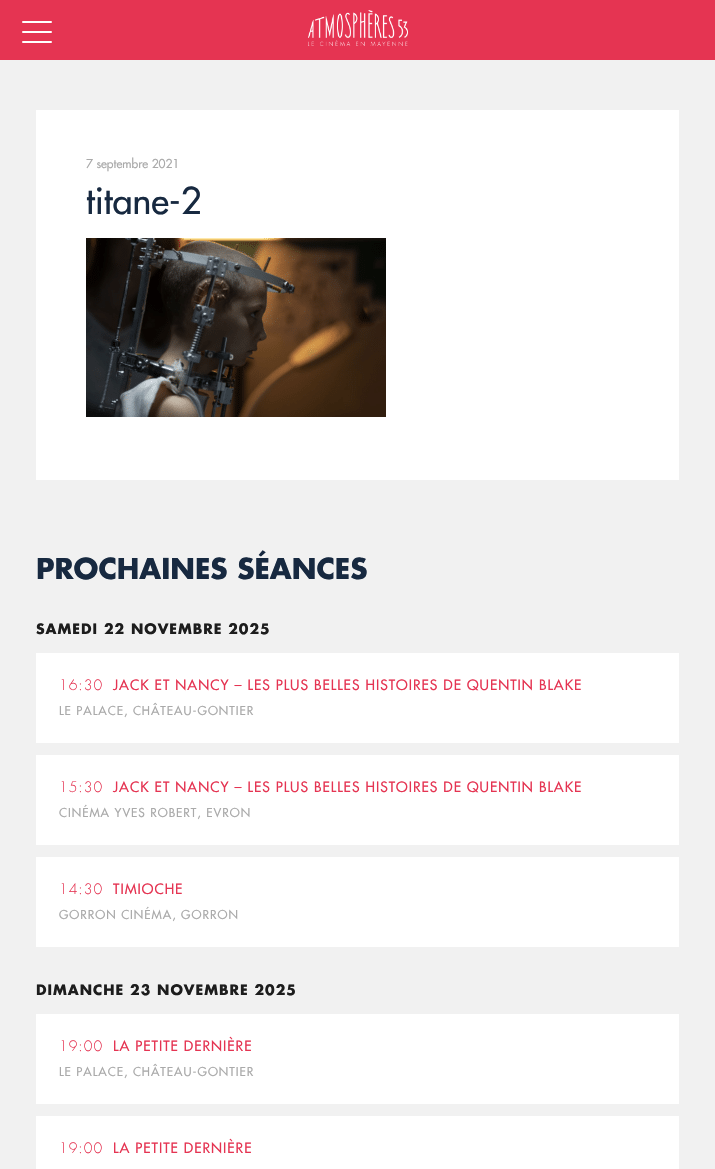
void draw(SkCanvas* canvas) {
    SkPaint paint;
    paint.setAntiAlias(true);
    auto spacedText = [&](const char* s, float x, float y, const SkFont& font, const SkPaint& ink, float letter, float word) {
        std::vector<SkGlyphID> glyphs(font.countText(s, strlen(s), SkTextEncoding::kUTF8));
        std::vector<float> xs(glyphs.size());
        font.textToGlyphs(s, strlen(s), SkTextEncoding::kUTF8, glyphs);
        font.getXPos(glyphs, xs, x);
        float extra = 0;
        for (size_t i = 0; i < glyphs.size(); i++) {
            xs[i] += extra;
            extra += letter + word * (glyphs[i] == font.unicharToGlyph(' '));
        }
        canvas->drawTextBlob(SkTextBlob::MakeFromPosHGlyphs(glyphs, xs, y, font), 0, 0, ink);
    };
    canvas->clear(0xFFF1F1F1);
    paint.setColor(0xFFE53452);
    canvas->drawRect(SkRect::MakeXYWH(0, 0, 715, 60), paint);
    paint.setColor(0xFFFFFFFF);
    canvas->drawRoundRect(SkRect::MakeXYWH(22, 21, 30, 2), 1, 1, paint);
    canvas->drawRoundRect(SkRect::MakeXYWH(22, 31, 30, 2), 1, 1, paint);
    canvas->drawRoundRect(SkRect::MakeXYWH(22, 41, 30, 2), 1, 1, paint);
    canvas->drawImageRect(SkImages::DeferredFromEncodedData(SkData::MakeFromFileName("img1.png")), SkRect::MakeXYWH(308, 10, 100, 36), SkSamplingOptions());
    canvas->drawRect(SkRect::MakeXYWH(36, 110, 643, 370), paint);
    SkFont font1(fontMgr->matchFamilyStyle("Futura", SkFontStyle::Normal()), 12);
    font1.setSubpixel(true);
    paint.setColor(0xFFAAAAAA);
    canvas->drawString("7 septembre 2021", 86, 168, font1, paint);
    SkFont font2(fontMgr->matchFamilyStyle("Futura", SkFontStyle::Normal()), 36);
    font2.setSubpixel(true);
    paint.setColor(0xFF172940);
    canvas->drawString("titane-2", 86, 214, font2, paint);
    canvas->drawImageRect(SkImages::DeferredFromEncodedData(SkData::MakeFromFileName("img2.png")), SkRect::MakeXYWH(86, 238, 300, 179), SkSamplingOptions());
    SkFont font3(fontMgr->matchFamilyStyle("Futura", SkFontStyle::Bold()), 28);
    font3.setSubpixel(true);
    canvas->drawString("PROCHAINES SÉANCES", 36, 579, font3, paint);
    SkFont font4(fontMgr->matchFamilyStyle("Futura", SkFontStyle::Bold()), 14);
    font4.setSubpixel(true);
    paint.setColor(0xFF1D1D1D);
    spacedText("SAMEDI 22 NOVEMBRE 2025", 36, 634, font4, paint, 1, 0);
    paint.setColor(0xFFFFFFFF);
    canvas->drawRect(SkRect::MakeXYWH(36, 653, 643, 90), paint);
    SkFont font5(fontMgr->matchFamilyStyle("Futura", SkFontStyle(300, SkFontStyle::kNormal_Width, SkFontStyle::kUpright_Slant)), 14);
    font5.setSubpixel(true);
    paint.setColor(0xFFE53452);
    spacedText("16:30", 59, 690, font5, paint, 1, 0);
    SkFont font6(fontMgr->matchFamilyStyle("Futura", SkFontStyle::Normal()), 14);
    font6.setSubpixel(true);
    spacedText("JACK ET NANCY – LES PLUS BELLES HISTOIRES DE QUENTIN BLAKE", 113, 690, font6, paint, 1, 0);
    paint.setColor(0xFFAAAAAA);
    spacedText("LE PALACE, CHÂTEAU-GONTIER", 59, 715, font1, paint, 1, 0);
    paint.setColor(0xFFFFFFFF);
    canvas->drawRect(SkRect::MakeXYWH(36, 755, 643, 90), paint);
    paint.setColor(0xFFE53452);
    spacedText("15:30", 59, 792, font5, paint, 1, 0);
    spacedText("JACK ET NANCY – LES PLUS BELLES HISTOIRES DE QUENTIN BLAKE", 113, 792, font6, paint, 1, 0);
    paint.setColor(0xFFAAAAAA);
    spacedText("CINÉMA YVES ROBERT, EVRON", 59, 817, font1, paint, 1, 0);
    paint.setColor(0xFFFFFFFF);
    canvas->drawRect(SkRect::MakeXYWH(36, 857, 643, 90), paint);
    paint.setColor(0xFFE53452);
    spacedText("14:30", 59, 894, font5, paint, 1, 0);
    spacedText("TIMIOCHE", 113, 894, font6, paint, 1, 0);
    paint.setColor(0xFFAAAAAA);
    spacedText("GORRON CINÉMA, GORRON", 59, 919, font1, paint, 1, 0);
    paint.setColor(0xFF1D1D1D);
    spacedText("DIMANCHE 23 NOVEMBRE 2025", 36, 995, font4, paint, 1, 0);
    paint.setColor(0xFFFFFFFF);
    canvas->drawRect(SkRect::MakeXYWH(36, 1014, 643, 90), paint);
    paint.setColor(0xFFE53452);
    spacedText("19:00", 59, 1051, font5, paint, 1, 0);
    spacedText("LA PETITE DERNIÈRE", 113, 1051, font6, paint, 1, 0);
    paint.setColor(0xFFAAAAAA);
    spacedText("LE PALACE, CHÂTEAU-GONTIER", 59, 1076, font1, paint, 1, 0);
    paint.setColor(0xFFFFFFFF);
    canvas->drawRect(SkRect::MakeXYWH(36, 1116, 643, 53), paint);
    paint.setColor(0xFFE53452);
    spacedText("19:00", 59, 1153, font5, paint, 1, 0);
    spacedText("LA PETITE DERNIÈRE", 113, 1153, font6, paint, 1, 0);
}
